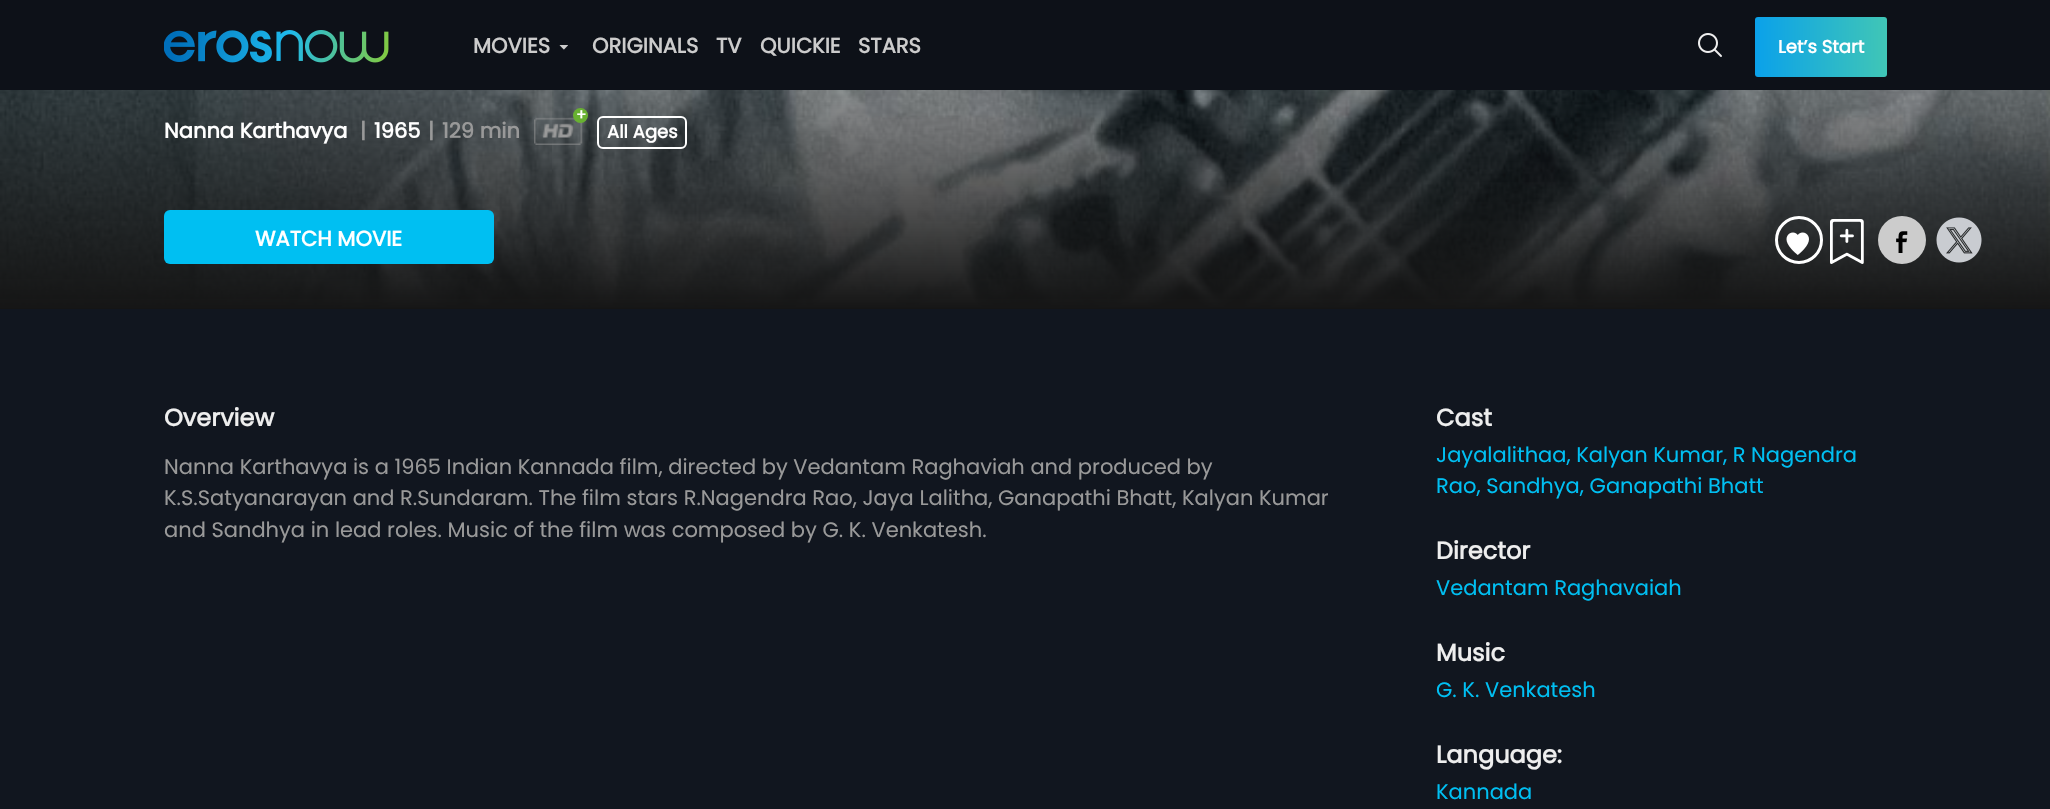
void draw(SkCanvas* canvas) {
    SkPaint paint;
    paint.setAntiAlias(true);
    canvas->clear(0xFF11161F);
    paint.setColor(0xFF0D1118);
    canvas->drawRect(SkRect::MakeXYWH(0, 0, 2050, 90), paint);
    canvas->drawImageRect(SkImages::DeferredFromEncodedData(SkData::MakeFromFileName("img1.png")), SkRect::MakeXYWH(164, 30, 225, 33), SkSamplingOptions());
    SkFont font1(fontMgr->matchFamilyStyle("Poppins", SkFontStyle::Bold()), 21);
    font1.setSubpixel(true);
    paint.setColor(0xFFCCCCCC);
    canvas->drawString("MOVIES", 473, 53, font1, paint);
    canvas->drawImageRect(SkImages::DeferredFromEncodedData(SkData::MakeFromFileName("img2.png")), SkRect::MakeXYWH(559, 45, 9, 5), SkSamplingOptions());
    canvas->drawString("ORIGINALS", 592, 53, font1, paint);
    canvas->drawString("TV", 716, 53, font1, paint);
    canvas->drawString("QUICKIE", 760, 53, font1, paint);
    canvas->drawString("STARS", 858, 53, font1, paint);
    canvas->drawImageRect(SkImages::DeferredFromEncodedData(SkData::MakeFromFileName("img3.png")), SkRect::MakeXYWH(1698, 33, 24, 24), SkSamplingOptions());
    {
        const SkColor colors[] = {0xFF40C6B6, 0xFF0AA1EA};
        const float stops[] = {0, 1};
        const SkPoint ends[] = {{1887, 46}, {1755, 47}};
        paint.setShader(SkGradientShader::MakeLinear(ends, colors, stops, 2, SkTileMode::kClamp));
        paint.setAlpha(255);
    }
    canvas->drawRoundRect(SkRect::MakeXYWH(1755, 17, 132, 60), 3, 3, paint);
    SkFont font2(fontMgr->matchFamilyStyle("Poppins", SkFontStyle::Bold()), 18);
    font2.setSubpixel(true);
    paint.setShader(nullptr);
    paint.setColor(0xFFFFFFFF);
    canvas->drawString("Let’s Start", 1778, 53, font2, paint);
    canvas->drawImageRect(SkImages::DeferredFromEncodedData(SkData::MakeFromFileName("img4.png")), SkRect::MakeXYWH(0, 90, 2050, 217), SkSamplingOptions());
    {
        const SkColor colors[] = {0x00151515, 0xFF151515};
        const float stops[] = {0, 1};
        const SkPoint ends[] = {{1025, -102}, {1025, 309}};
        paint.setShader(SkGradientShader::MakeLinear(ends, colors, stops, 2, SkTileMode::kClamp));
        paint.setAlpha(255);
    }
    canvas->drawRect(SkRect::MakeXYWH(0, 90, 2050, 219), paint);
    canvas->drawImageRect(SkImages::DeferredFromEncodedData(SkData::MakeFromFileName("img5.png")), SkRect::MakeXYWH(534, 117, 49, 28), SkSamplingOptions());
    paint.setShader(nullptr);
    paint.setColor(0xFF68B131);
    canvas->drawCircle(580.5f, 115.5f, 7.5f, paint);
    SkFont font3(fontMgr->matchFamilyStyle("Poppins", SkFontStyle::Bold()), 15);
    font3.setSubpixel(true);
    paint.setColor(0xFFFFFFFF);
    canvas->drawString("+", 576, 120, font3, paint);
    canvas->drawString("Nanna Karthavya", 164, 138, font1, paint);
    paint.setColor(0xFF999999);
    canvas->drawString("|", 360, 138, font1, paint);
    paint.setColor(0xFFFFFFFF);
    canvas->drawString("1965", 374, 138, font1, paint);
    paint.setColor(0xFF999999);
    canvas->drawString("|", 428, 138, font1, paint);
    canvas->drawString("129 min", 442, 138, font1, paint);
    paint.setStyle(SkPaint::kStroke_Style);
    paint.setStrokeWidth(2);
    paint.setColor(0xFFFFFFFF);
    canvas->drawRoundRect(SkRect::MakeXYWH(598, 117, 88, 31), 5, 5, paint);
    paint.setStyle(SkPaint::kFill_Style);
    canvas->drawString("All Ages", 607, 138, font2, paint);
    paint.setColor(0xFF00BFF2);
    canvas->drawRoundRect(SkRect::MakeXYWH(164, 210, 330, 54), 6, 6, paint);
    paint.setColor(0xFFFFFFFF);
    canvas->drawString("WATCH MOVIE", 255, 246, font1, paint);
    paint.setStyle(SkPaint::kStroke_Style);
    paint.setStrokeWidth(3);
    canvas->drawCircle(1799, 240, 22.5f, paint);
    canvas->drawImageRect(SkImages::DeferredFromEncodedData(SkData::MakeFromFileName("img6.png")), SkRect::MakeXYWH(1786, 232, 23, 23), SkSamplingOptions());
    canvas->drawImageRect(SkImages::DeferredFromEncodedData(SkData::MakeFromFileName("img7.png")), SkRect::MakeXYWH(1830, 219, 34, 45), SkSamplingOptions());
    paint.setStyle(SkPaint::kFill_Style);
    paint.setColor(0xFFCCCCCC);
    canvas->drawCircle(1902, 240, 24, paint);
    canvas->drawImageRect(SkImages::DeferredFromEncodedData(SkData::MakeFromFileName("img8.png")), SkRect::MakeXYWH(1896, 231, 12, 22), SkSamplingOptions());
    canvas->drawImageRect(SkImages::DeferredFromEncodedData(SkData::MakeFromFileName("img9.png")), SkRect::MakeXYWH(1936, 217, 46, 46), SkSamplingOptions());
    SkFont font4(fontMgr->matchFamilyStyle("Poppins", SkFontStyle::Bold()), 24);
    font4.setSubpixel(true);
    paint.setColor(0xFFEEEEEE);
    canvas->drawString("Overview", 164, 426, font4, paint);
    SkFont font5(fontMgr->matchFamilyStyle("Poppins", SkFontStyle::Normal()), 21);
    font5.setSubpixel(true);
    paint.setColor(0xFF999999);
    canvas->drawString("Nanna Karthavya is a 1965 Indian Kannada film, directed by Vedantam Raghaviah and produced by", 164, 474, font5, paint);
    canvas->drawString("K.S.Satyanarayan and R.Sundaram. The film stars R.Nagendra Rao, Jaya Lalitha, Ganapathi Bhatt, Kalyan Kumar", 164, 505, font5, paint);
    canvas->drawString("and Sandhya in lead roles. Music of the film was composed by G. K. Venkatesh.", 164, 537, font5, paint);
    paint.setColor(0xFFEEEEEE);
    canvas->drawString("Cast", 1436, 426, font4, paint);
    paint.setColor(0xFF00BFF2);
    canvas->drawString("Jayalalithaa, Kalyan Kumar, R Nagendra", 1436, 462, font5, paint);
    canvas->drawString("Rao, Sandhya, Ganapathi Bhatt", 1436, 493, font5, paint);
    paint.setColor(0xFFEEEEEE);
    canvas->drawString("Director", 1436, 559, font4, paint);
    paint.setColor(0xFF00BFF2);
    canvas->drawString("Vedantam Raghavaiah", 1436, 595, font5, paint);
    paint.setColor(0xFFEEEEEE);
    canvas->drawString("Music", 1436, 661, font4, paint);
    paint.setColor(0xFF00BFF2);
    canvas->drawString("G. K. Venkatesh", 1436, 697, font5, paint);
    paint.setColor(0xFFEEEEEE);
    canvas->drawString("Language:", 1436, 763, font4, paint);
    paint.setColor(0xFF00BFF2);
    canvas->drawString("Kannada", 1436, 799, font5, paint);
}
